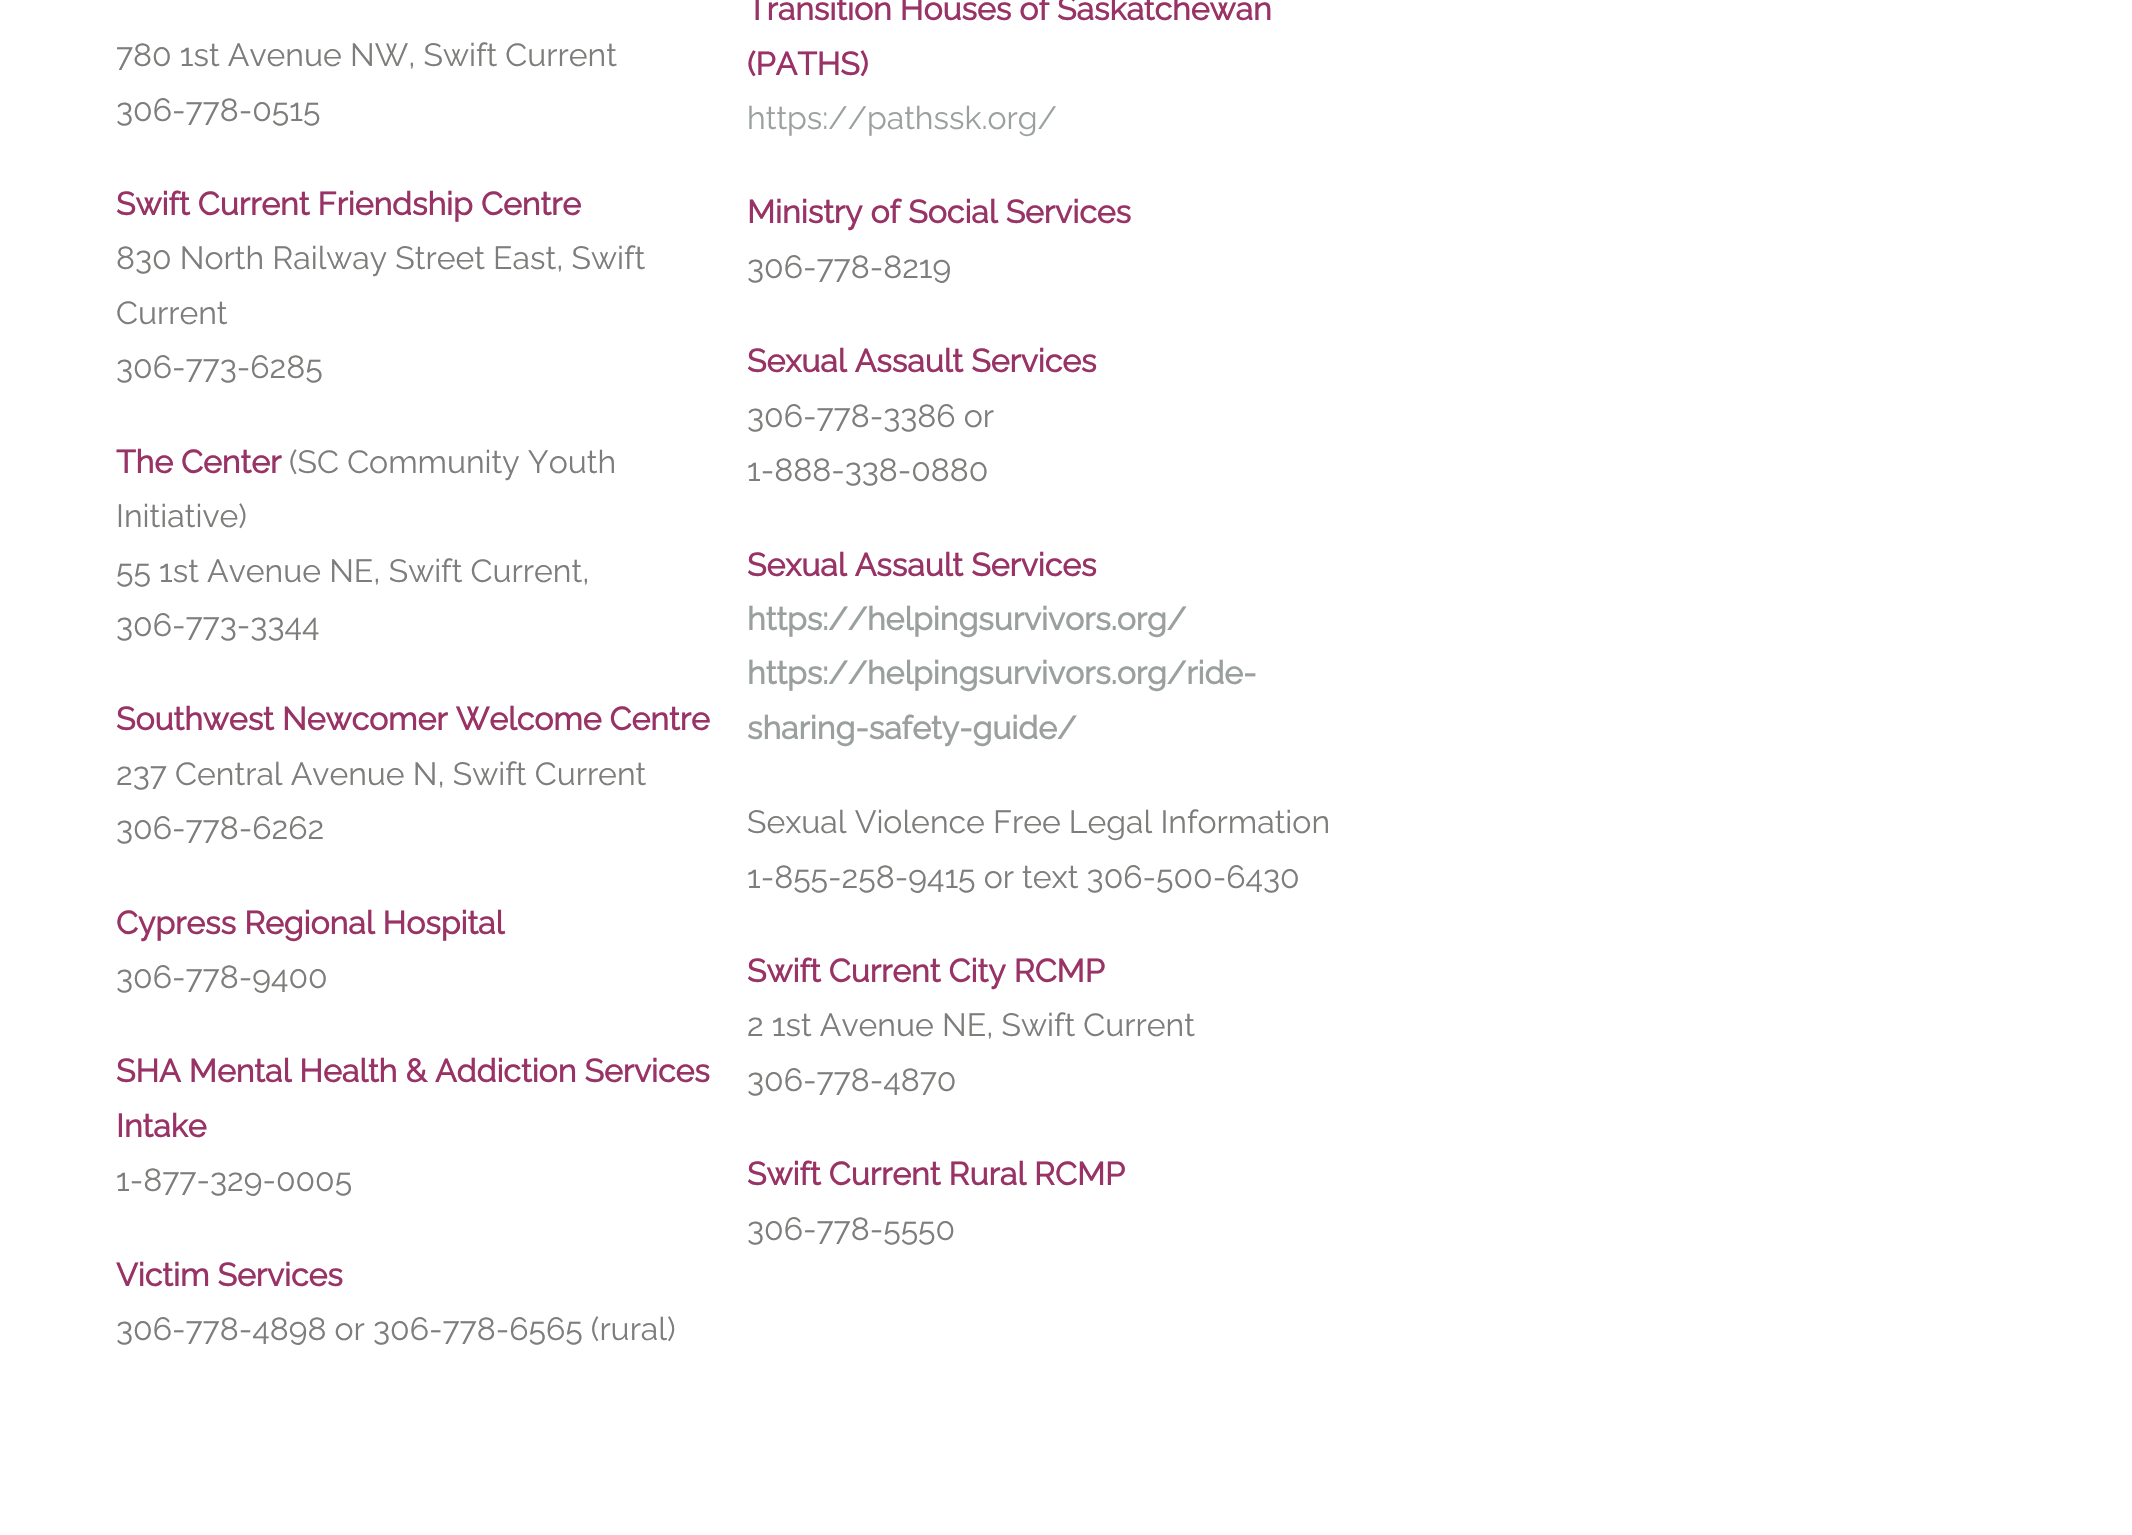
void draw(SkCanvas* canvas) {
    SkPaint paint;
    paint.setAntiAlias(true);
    canvas->clear(0xFFFFFFFF);
    SkFont font1(fontMgr->matchFamilyStyle("Raleway", SkFontStyle(100, SkFontStyle::kNormal_Width, SkFontStyle::kUpright_Slant)), 32);
    font1.setSubpixel(true);
    paint.setColor(0xFF7D7D7B);
    canvas->drawString("780 1st Avenue NW, Swift Current", 116, 66, font1, paint);
    canvas->drawString("306-778-0515", 116, 121, font1, paint);
    SkFont font2(fontMgr->matchFamilyStyle("Raleway", SkFontStyle::Bold()), 32);
    font2.setSubpixel(true);
    paint.setColor(0xFF993366);
    canvas->drawString("Swift Current Friendship Centre", 116, 215, font2, paint);
    paint.setColor(0xFF7D7D7B);
    canvas->drawString("830 North Railway Street East, Swift", 116, 269, font1, paint);
    canvas->drawString("Current", 116, 324, font1, paint);
    canvas->drawString("306-773-6285", 116, 378, font1, paint);
    paint.setColor(0xFF993366);
    canvas->drawString("The Center", 116, 473, font2, paint);
    paint.setColor(0xFF7D7D7B);
    canvas->drawString("(SC Community Youth", 289, 473, font1, paint);
    canvas->drawString("Initiative)", 116, 527, font1, paint);
    canvas->drawString("55 1st Avenue NE, Swift Current,", 116, 582, font1, paint);
    canvas->drawString("306-773-3344", 116, 636, font1, paint);
    paint.setColor(0xFF993366);
    canvas->drawString("Southwest Newcomer Welcome Centre", 116, 730, font2, paint);
    paint.setColor(0xFF7D7D7B);
    canvas->drawString("237 Central Avenue N, Swift Current", 116, 785, font1, paint);
    canvas->drawString("306-778-6262", 116, 839, font1, paint);
    paint.setColor(0xFF993366);
    canvas->drawString("Cypress Regional Hospital", 116, 934, font2, paint);
    paint.setColor(0xFF7D7D7B);
    canvas->drawString("306-778-9400", 116, 988, font1, paint);
    paint.setColor(0xFF993366);
    canvas->drawString("SHA Mental Health & Addiction Services", 116, 1082, font2, paint);
    canvas->drawString("Intake", 116, 1137, font2, paint);
    paint.setColor(0xFF7D7D7B);
    canvas->drawString("1-877-329-0005", 116, 1191, font1, paint);
    paint.setColor(0xFF993366);
    canvas->drawString("Victim Services", 116, 1286, font2, paint);
    paint.setColor(0xFF7D7D7B);
    canvas->drawString("306-778-4898 or 306-778-6565 (rural)", 116, 1340, font1, paint);
    paint.setColor(0xFF993366);
    canvas->drawString("Transition Houses of Saskatchewan", 747, 20, font2, paint);
    canvas->drawString("(PATHS)", 747, 75, font2, paint);
    paint.setColor(0xFF9AA09D);
    canvas->drawString("https://pathssk.org/", 747, 129, font1, paint);
    paint.setColor(0xFF993366);
    canvas->drawString("Ministry of Social Services", 747, 223, font2, paint);
    paint.setColor(0xFF7D7D7B);
    canvas->drawString("306-778-8219", 747, 278, font1, paint);
    paint.setColor(0xFF993366);
    canvas->drawString("Sexual Assault Services", 747, 372, font2, paint);
    paint.setColor(0xFF7D7D7B);
    canvas->drawString("306-778-3386 or", 747, 427, font1, paint);
    canvas->drawString("1-888-338-0880", 747, 481, font1, paint);
    paint.setColor(0xFF993366);
    canvas->drawString("Sexual Assault Services", 747, 576, font2, paint);
    paint.setColor(0xFF9AA09D);
    canvas->drawString("https://helpingsurvivors.org/", 747, 630, font2, paint);
    canvas->drawString("https://helpingsurvivors.org/ride-", 747, 684, font2, paint);
    canvas->drawString("sharing-safety-guide/", 747, 739, font2, paint);
    paint.setColor(0xFF7D7D7B);
    canvas->drawString("Sexual Violence Free Legal Information", 747, 833, font1, paint);
    canvas->drawString("1-855-258-9415 or text 306-500-6430", 747, 888, font1, paint);
    paint.setColor(0xFF993366);
    canvas->drawString("Swift Current City RCMP", 747, 982, font2, paint);
    paint.setColor(0xFF7D7D7B);
    canvas->drawString("2 1st Avenue NE, Swift Current", 747, 1036, font1, paint);
    canvas->drawString("306-778-4870", 747, 1091, font1, paint);
    paint.setColor(0xFF993366);
    canvas->drawString("Swift Current Rural RCMP", 747, 1185, font2, paint);
    paint.setColor(0xFF7D7D7B);
    canvas->drawString("306-778-5550", 747, 1240, font1, paint);
}
